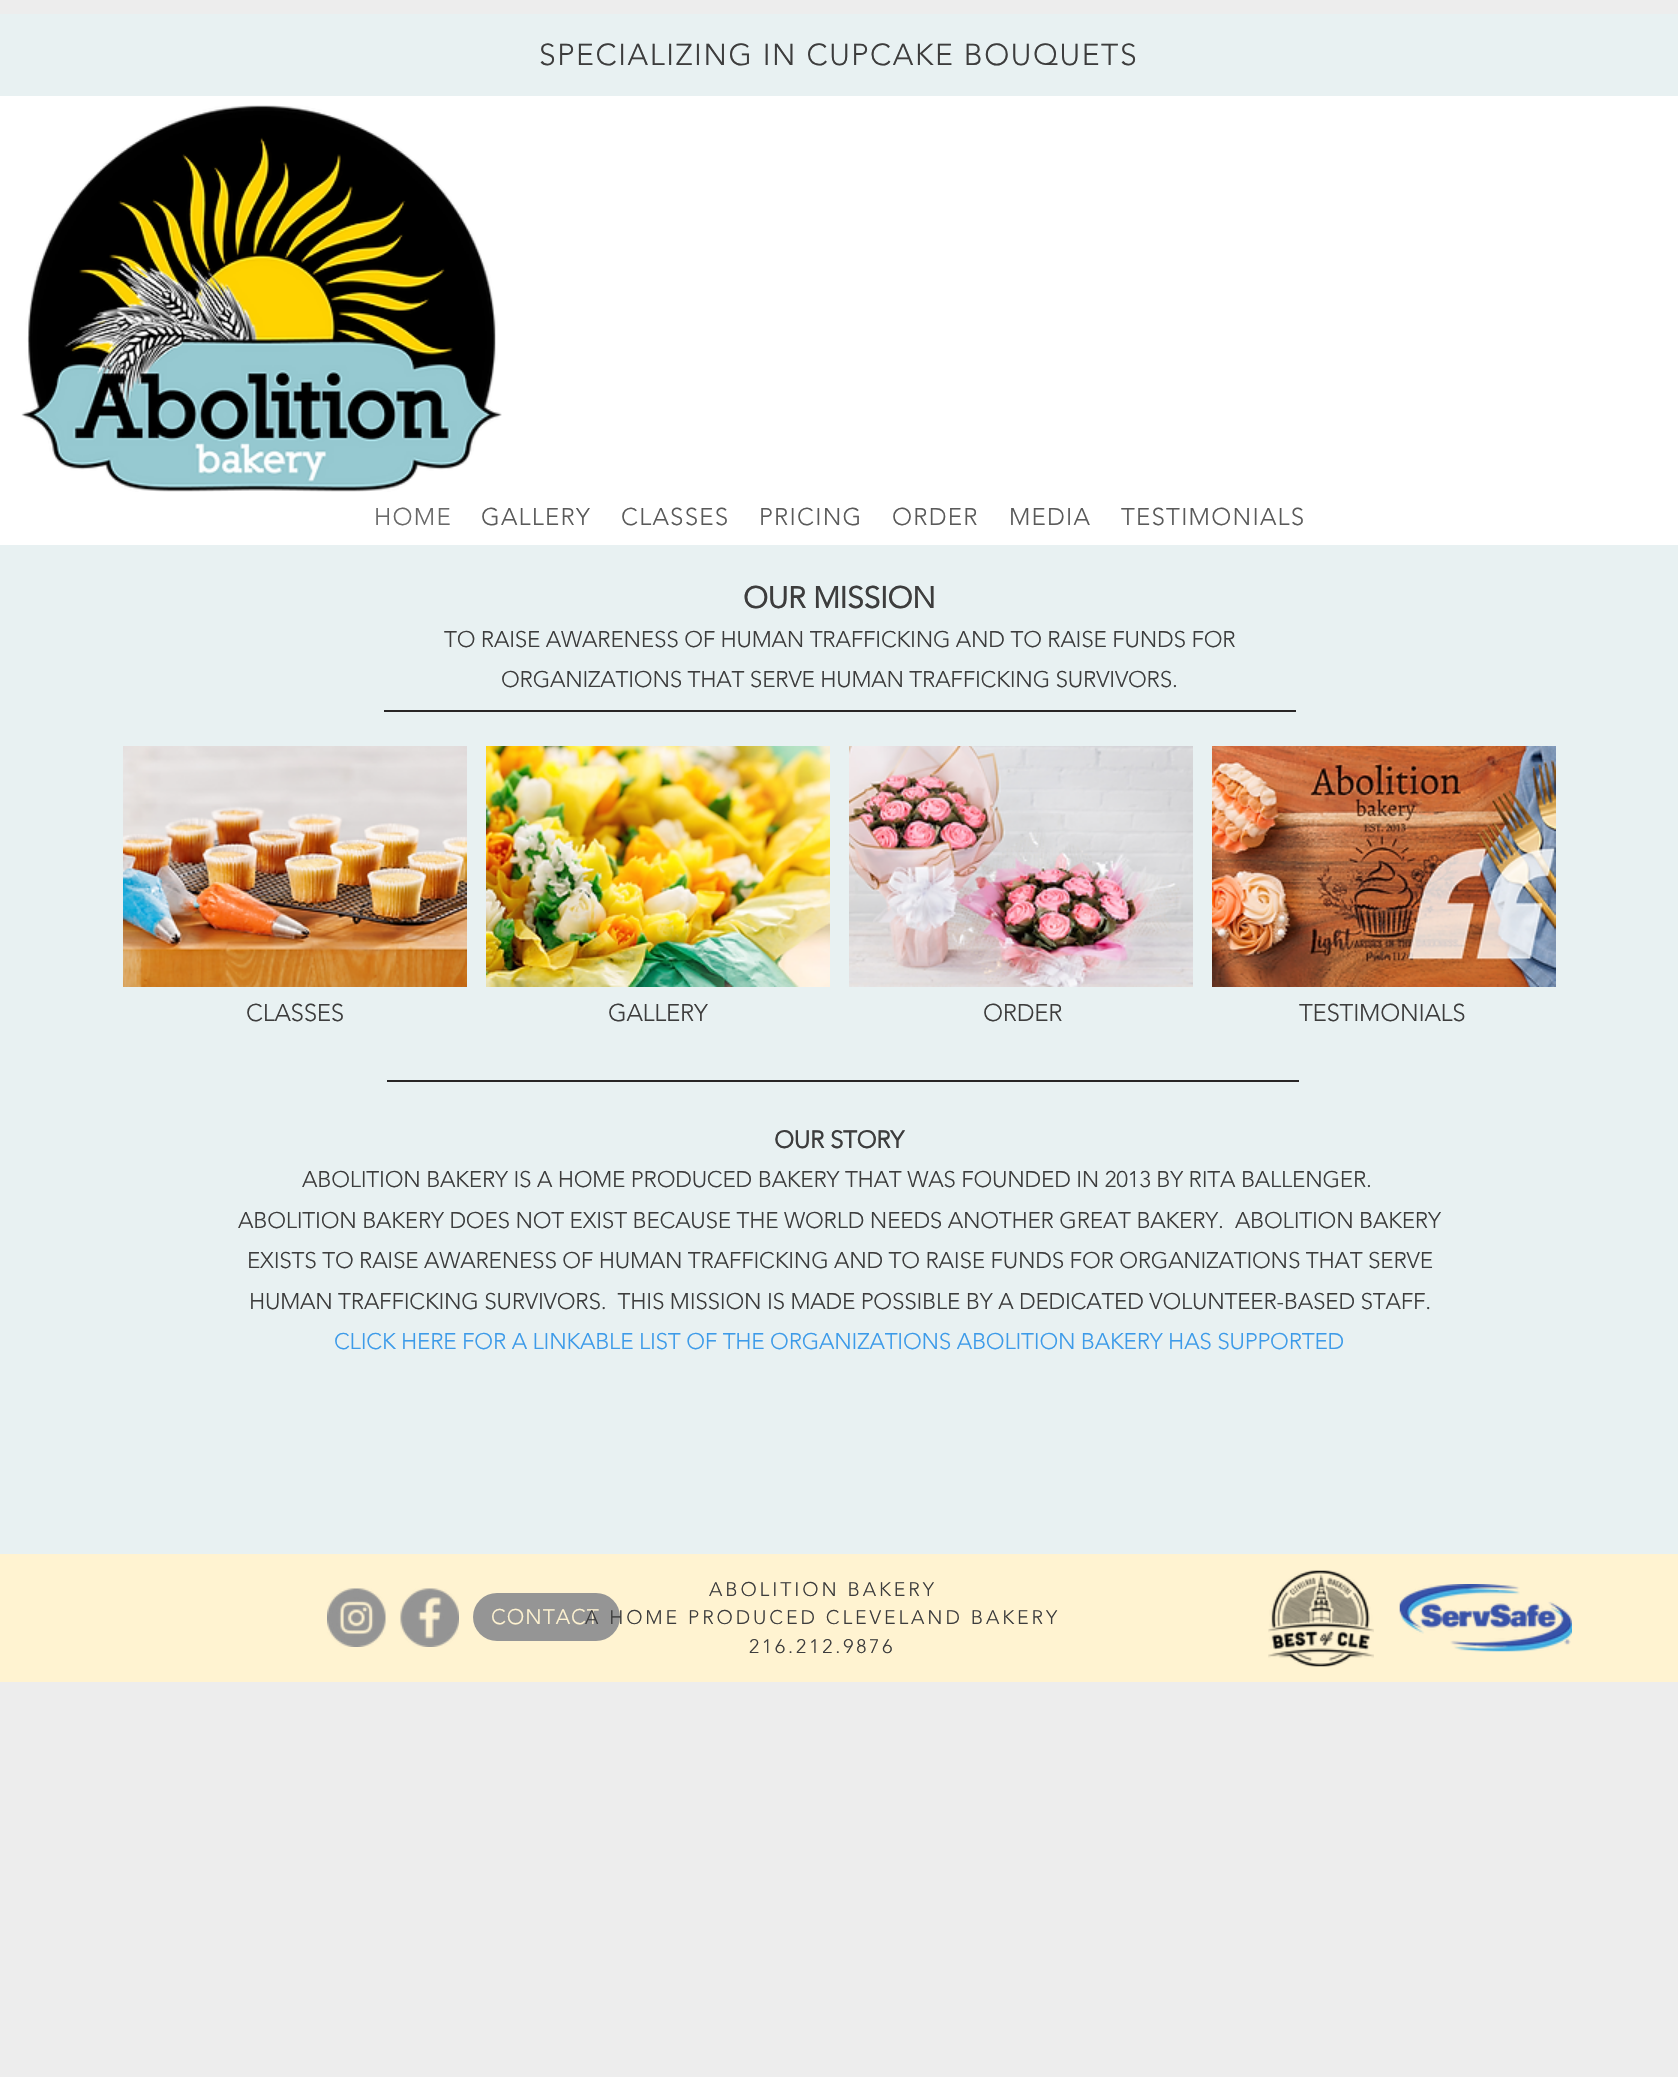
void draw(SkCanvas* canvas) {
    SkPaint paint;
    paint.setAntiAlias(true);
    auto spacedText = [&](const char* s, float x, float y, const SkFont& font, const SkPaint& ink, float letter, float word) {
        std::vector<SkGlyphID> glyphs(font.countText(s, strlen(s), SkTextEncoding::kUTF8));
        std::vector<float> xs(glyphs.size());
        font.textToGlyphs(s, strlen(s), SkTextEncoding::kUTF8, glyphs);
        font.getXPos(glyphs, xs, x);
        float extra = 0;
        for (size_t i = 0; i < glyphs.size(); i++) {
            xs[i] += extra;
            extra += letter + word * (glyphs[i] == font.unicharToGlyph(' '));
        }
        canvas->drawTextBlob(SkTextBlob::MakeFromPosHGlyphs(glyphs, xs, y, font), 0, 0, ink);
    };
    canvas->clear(0xFFEDEDED);
    paint.setColor(0xFFE8F1F2);
    canvas->drawRect(SkRect::MakeXYWH(0, 14, 1678, 82), paint);
    SkFont font1(fontMgr->matchFamilyStyle("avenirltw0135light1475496", SkFontStyle(300, SkFontStyle::kNormal_Width, SkFontStyle::kUpright_Slant)), 30);
    font1.setSubpixel(true);
    paint.setColor(0xFF3D3D3D);
    spacedText("SPECIALIZING IN CUPCAKE BOUQUETS", 539, 65, font1, paint, 1.6f, 0);
    paint.setColor(0xFFFFFFFF);
    canvas->drawRect(SkRect::MakeXYWH(0, 96, 1678, 449), paint);
    canvas->drawImageRect(SkImages::DeferredFromEncodedData(SkData::MakeFromFileName("img1.png")), SkRect::MakeXYWH(21, 105, 481, 387), SkSamplingOptions());
    SkFont font2(fontMgr->matchFamilyStyle("avenirltw0135light1475496", SkFontStyle(300, SkFontStyle::kNormal_Width, SkFontStyle::kUpright_Slant)), 24);
    font2.setSubpixel(true);
    paint.setColor(0xFF696969);
    spacedText("HOME", 374, 525, font2, paint, 1.25f, 0);
    paint.setColor(0xFF5A5A5A);
    spacedText("GALLERY", 481, 525, font2, paint, 1.25f, 0);
    spacedText("CLASSES", 621, 525, font2, paint, 1.25f, 0);
    spacedText("PRICING", 759, 525, font2, paint, 1.25f, 0);
    spacedText("ORDER", 892, 525, font2, paint, 1.25f, 0);
    spacedText("MEDIA", 1009, 525, font2, paint, 1.25f, 0);
    spacedText("TESTIMONIALS", 1121, 525, font2, paint, 1.25f, 0);
    paint.setColor(0xFFE8F1F2);
    canvas->drawRect(SkRect::MakeXYWH(0, 545, 1678, 1009), paint);
    SkFont font3(fontMgr->matchFamilyStyle("avenirltw0135light1475496", SkFontStyle::Bold()), 30);
    font3.setSubpixel(true);
    paint.setColor(0xFF3D3D3D);
    spacedText("OUR MISSION", 743, 608, font3, paint, -0.25f, 0);
    SkFont font4(fontMgr->matchFamilyStyle("avenirltw0135light1475496", SkFontStyle(300, SkFontStyle::kNormal_Width, SkFontStyle::kUpright_Slant)), 22.5f);
    font4.setSubpixel(true);
    spacedText("TO RAISE AWARENESS OF HUMAN TRAFFICKING AND TO RAISE FUNDS FOR", 444, 647, font4, paint, -0.22f, 0);
    spacedText("ORGANIZATIONS THAT SERVE HUMAN TRAFFICKING SURVIVORS.", 501, 687, font4, paint, -0.22f, 0);
    paint.setColor(0xFF282626);
    canvas->drawRect(SkRect::MakeXYWH(384, 710, 912, 2), paint);
    canvas->drawImageRect(SkImages::DeferredFromEncodedData(SkData::MakeFromFileName("img2.png")), SkRect::MakeXYWH(123, 746, 344, 241), SkSamplingOptions());
    canvas->drawImageRect(SkImages::DeferredFromEncodedData(SkData::MakeFromFileName("img3.png")), SkRect::MakeXYWH(486, 746, 344, 241), SkSamplingOptions());
    canvas->drawImageRect(SkImages::DeferredFromEncodedData(SkData::MakeFromFileName("img4.png")), SkRect::MakeXYWH(849, 746, 344, 241), SkSamplingOptions());
    canvas->drawImageRect(SkImages::DeferredFromEncodedData(SkData::MakeFromFileName("img5.png")), SkRect::MakeXYWH(1212, 746, 344, 241), SkSamplingOptions());
    paint.setColor(0xFF3D3D3D);
    spacedText("CLASSES", 246, 1021, font2, paint, -0.25f, 0);
    spacedText("GALLERY", 608, 1021, font2, paint, -0.25f, 0);
    spacedText("ORDER", 983, 1021, font2, paint, -0.25f, 0);
    spacedText("TESTIMONIALS", 1299, 1021, font2, paint, -0.25f, 0);
    paint.setColor(0xFF282626);
    canvas->drawRect(SkRect::MakeXYWH(387, 1080, 912, 2), paint);
    SkFont font5(fontMgr->matchFamilyStyle("avenirltw0135light1475496", SkFontStyle::Bold()), 24);
    font5.setSubpixel(true);
    paint.setColor(0xFF3D3D3D);
    spacedText("OUR STORY", 774, 1148, font5, paint, -0.25f, 0);
    spacedText("ABOLITION BAKERY IS A HOME PRODUCED BAKERY THAT WAS FOUNDED IN 2013 BY RITA BALLENGER.", 302, 1187, font4, paint, -0.22f, 0);
    spacedText("ABOLITION BAKERY DOES NOT EXIST BECAUSE THE WORLD NEEDS ANOTHER GREAT BAKERY.  ABOLITION BAKERY", 238, 1228, font4, paint, -0.22f, 0);
    spacedText("EXISTS TO RAISE AWARENESS OF HUMAN TRAFFICKING AND TO RAISE FUNDS FOR ORGANIZATIONS THAT SERVE", 247, 1268, font4, paint, -0.22f, 0);
    spacedText("HUMAN TRAFFICKING SURVIVORS.  THIS MISSION IS MADE POSSIBLE BY A DEDICATED VOLUNTEER-BASED STAFF.", 249, 1309, font4, paint, -0.22f, 0);
    paint.setColor(0xFF3D9BE9);
    spacedText("CLICK HERE FOR A LINKABLE LIST OF THE ORGANIZATIONS ABOLITION BAKERY HAS SUPPORTED", 334, 1349, font4, paint, -0.22f, 0);
    paint.setColor(0xFFFFF3D1);
    canvas->drawRect(SkRect::MakeXYWH(0, 1554, 1678, 128), paint);
    canvas->drawImageRect(SkImages::DeferredFromEncodedData(SkData::MakeFromFileName("img6.png")), SkRect::MakeXYWH(327, 1588, 59, 59), SkSamplingOptions());
    canvas->drawImageRect(SkImages::DeferredFromEncodedData(SkData::MakeFromFileName("img7.png")), SkRect::MakeXYWH(400, 1588, 59, 59), SkSamplingOptions());
    paint.setColor(0xFF959595);
    canvas->drawRoundRect(SkRect::MakeXYWH(473, 1593, 147, 48), 24, 24, paint);
    SkFont font6(fontMgr->matchFamilyStyle("avenirltw0135light1475496", SkFontStyle(300, SkFontStyle::kNormal_Width, SkFontStyle::kUpright_Slant)), 21);
    font6.setSubpixel(true);
    paint.setColor(0xFFFFF3D1);
    spacedText("CONTACT", 491, 1624, font6, paint, 1, 0);
    canvas->drawImageRect(SkImages::DeferredFromEncodedData(SkData::MakeFromFileName("img8.png")), SkRect::MakeXYWH(1268, 1570, 106, 97), SkSamplingOptions());
    canvas->drawImageRect(SkImages::DeferredFromEncodedData(SkData::MakeFromFileName("img9.png")), SkRect::MakeXYWH(1399, 1584, 173, 68), SkSamplingOptions());
    SkFont font7(fontMgr->matchFamilyStyle("avenirltw0135light1475496", SkFontStyle(300, SkFontStyle::kNormal_Width, SkFontStyle::kUpright_Slant)), 19.5f);
    font7.setSubpixel(true);
    paint.setColor(0xFF3D3D3D);
    spacedText("ABOLITION BAKERY", 709, 1596, font7, paint, 2.9f, 0);
    spacedText("A HOME PRODUCED CLEVELAND BAKERY", 585, 1624, font7, paint, 2.9f, 0);
    spacedText("216.212.9876", 749, 1653, font7, paint, 2.9f, 0);
}
